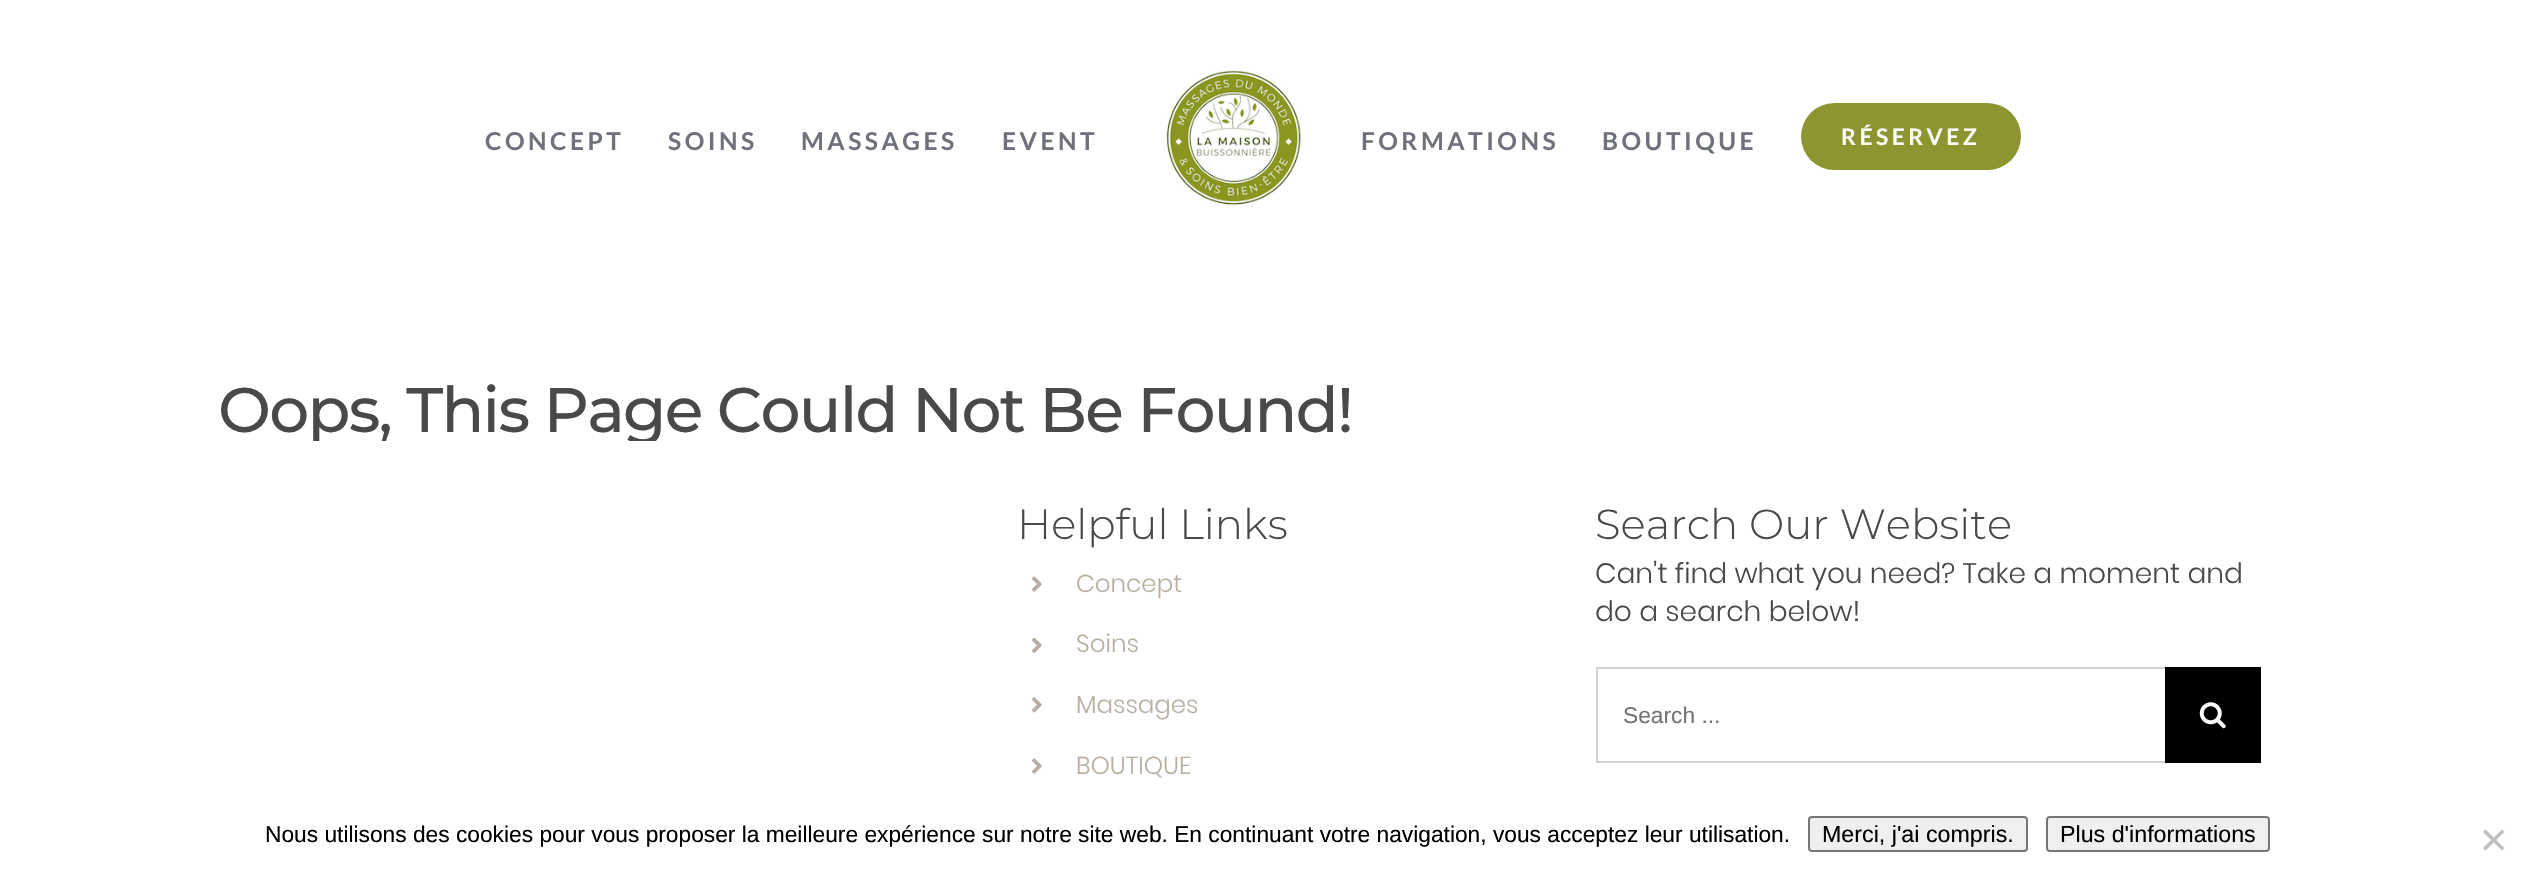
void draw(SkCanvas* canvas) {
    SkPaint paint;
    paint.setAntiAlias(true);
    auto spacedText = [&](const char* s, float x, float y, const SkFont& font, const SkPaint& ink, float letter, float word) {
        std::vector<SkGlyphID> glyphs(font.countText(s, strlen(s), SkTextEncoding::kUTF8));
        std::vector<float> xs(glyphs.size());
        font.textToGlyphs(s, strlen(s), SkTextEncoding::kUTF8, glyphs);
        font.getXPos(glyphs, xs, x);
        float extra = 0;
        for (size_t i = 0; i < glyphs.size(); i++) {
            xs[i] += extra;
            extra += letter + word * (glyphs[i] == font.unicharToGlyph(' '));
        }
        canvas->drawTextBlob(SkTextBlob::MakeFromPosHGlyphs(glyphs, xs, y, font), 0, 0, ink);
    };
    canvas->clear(0xFFFFFFFF);
    SkFont font1(fontMgr->matchFamilyStyle("Lato", SkFontStyle::Bold()), 24.5f);
    font1.setSubpixel(true);
    paint.setColor(0xFF6F727B);
    spacedText("CONCEPT", 485, 150, font1, paint, 3.5f, 0);
    spacedText("SOINS", 668, 150, font1, paint, 3.5f, 0);
    spacedText("MASSAGES", 801, 150, font1, paint, 3.5f, 0);
    spacedText("EVENT", 1002, 150, font1, paint, 3.5f, 0);
    canvas->drawImageRect(SkImages::DeferredFromEncodedData(SkData::MakeFromFileName("img1.png")), SkRect::MakeXYWH(1166, 70, 136, 135), SkSamplingOptions());
    spacedText("FORMATIONS", 1361, 150, font1, paint, 3.5f, 0);
    spacedText("BOUTIQUE", 1602, 150, font1, paint, 3.5f, 0);
    paint.setColor(0xFF8D9531);
    canvas->drawRoundRect(SkRect::MakeXYWH(1801, 103, 220, 67), 33.5f, 33.5f, paint);
    SkFont font2(fontMgr->matchFamilyStyle("Lato", SkFontStyle::Bold()), 22.75f);
    font2.setSubpixel(true);
    paint.setColor(0xFFF9FAF5);
    spacedText("RÉSERVEZ", 1841, 145, font2, paint, 3.5f, 0);
    canvas->save();
    canvas->clipRect(SkRect::MakeXYWH(219, 378, 2100, 63));
    SkFont font3(fontMgr->matchFamilyStyle("Montserrat", SkFontStyle(500, SkFontStyle::kNormal_Width, SkFontStyle::kUpright_Slant)), 63);
    font3.setSubpixel(true);
    paint.setColor(0xFF494949);
    spacedText("Oops, This Page Could Not Be Found!", 218, 432, font3, paint, -1.75f, 0);
    canvas->restore();
    SkFont font4(fontMgr->matchFamilyStyle("Montserrat", SkFontStyle(300, SkFontStyle::kNormal_Width, SkFontStyle::kUpright_Slant)), 42);
    font4.setSubpixel(true);
    canvas->drawString("Helpful Links", 1017, 539, font4, paint);
    canvas->drawImageRect(SkImages::DeferredFromEncodedData(SkData::MakeFromFileName("img2.png")), SkRect::MakeXYWH(1032, 576, 10, 16), SkSamplingOptions());
    SkFont font5(fontMgr->matchFamilyStyle("Poppins", SkFontStyle(300, SkFontStyle::kNormal_Width, SkFontStyle::kUpright_Slant)), 24.5f);
    font5.setSubpixel(true);
    paint.setColor(0xFFB9AFA1);
    canvas->drawString("Concept", 1076, 592, font5, paint);
    canvas->drawImageRect(SkImages::DeferredFromEncodedData(SkData::MakeFromFileName("img3.png")), SkRect::MakeXYWH(1032, 637, 10, 16), SkSamplingOptions());
    canvas->drawString("Soins", 1076, 652, font5, paint);
    canvas->drawImageRect(SkImages::DeferredFromEncodedData(SkData::MakeFromFileName("img4.png")), SkRect::MakeXYWH(1032, 697, 10, 16), SkSamplingOptions());
    canvas->drawString("Massages", 1076, 713, font5, paint);
    canvas->drawImageRect(SkImages::DeferredFromEncodedData(SkData::MakeFromFileName("img2.png")), SkRect::MakeXYWH(1032, 758, 10, 16), SkSamplingOptions());
    canvas->drawString("BOUTIQUE", 1076, 774, font5, paint);
    paint.setColor(0xFF494949);
    canvas->drawString("Search Our Website", 1595, 539, font4, paint);
    SkFont font6(fontMgr->matchFamilyStyle("Poppins", SkFontStyle(300, SkFontStyle::kNormal_Width, SkFontStyle::kUpright_Slant)), 28);
    font6.setSubpixel(true);
    canvas->drawString("Can't find what you need? Take a moment and", 1595, 583, font6, paint);
    canvas->drawString("do a search below!", 1595, 621, font6, paint);
    paint.setColor(0xFFD2D2D2);
    canvas->drawRect(SkRect::MakeXYWH(1596, 667, 569, 2), paint);
    canvas->drawRect(SkRect::MakeXYWH(1596, 761, 569, 2), paint);
    canvas->drawRect(SkRect::MakeXYWH(1596, 667, 2, 96), paint);
    SkFont font7(fontMgr->matchFamilyStyle("Liberation Sans", SkFontStyle::Normal()), 22.75f);
    font7.setSubpixel(true);
    paint.setColor(0xFF747474);
    canvas->drawString("Search ...", 1623, 723, font7, paint);
    paint.setColor(0xFF000000);
    canvas->drawRect(SkRect::MakeXYWH(2165, 667, 96, 96), paint);
    canvas->drawImageRect(SkImages::DeferredFromEncodedData(SkData::MakeFromFileName("img5.png")), SkRect::MakeXYWH(2199, 702, 27, 27), SkSamplingOptions());
    canvas->drawString("Nous utilisons des cookies pour vous proposer la meilleure expérience sur notre site web. En continuant votre navigation, vous acceptez leur utilisation.", 265, 842, font7, paint);
    paint.setColor(0xFFEFEFEF);
    canvas->drawRoundRect(SkRect::MakeXYWH(1809, 817, 218, 34), 3, 3, paint);
    paint.setStyle(SkPaint::kStroke_Style);
    paint.setStrokeWidth(2);
    paint.setColor(0xFF767676);
    canvas->drawRoundRect(SkRect::MakeXYWH(1809, 817, 218, 34), 3, 3, paint);
    SkFont font8(fontMgr->matchFamilyStyle("Liberation Sans", SkFontStyle::Normal()), 23.25f);
    font8.setSubpixel(true);
    paint.setStyle(SkPaint::kFill_Style);
    paint.setColor(0xFF000000);
    canvas->drawString("Merci, j'ai compris.", 1822, 842, font8, paint);
    paint.setColor(0xFFEFEFEF);
    canvas->drawRoundRect(SkRect::MakeXYWH(2047, 817, 222, 34), 3, 3, paint);
    paint.setStyle(SkPaint::kStroke_Style);
    paint.setColor(0xFF767676);
    canvas->drawRoundRect(SkRect::MakeXYWH(2047, 817, 222, 34), 3, 3, paint);
    paint.setStyle(SkPaint::kFill_Style);
    paint.setColor(0xFF000000);
    canvas->drawString("Plus d'informations", 2060, 842, font8, paint);
    paint.setColor(0xFFC0C0C0);
    canvas->drawPath(SkPathBuilder().moveTo(2502, 829.5f).lineTo(2504.5f, 832).lineTo(2485.5f, 850.5f).lineTo(2483, 848).close().detach(), paint);
    canvas->drawPath(SkPathBuilder().moveTo(2483, 832).lineTo(2485.5f, 829.5f).lineTo(2504.5f, 848).lineTo(2502, 850.5f).close().detach(), paint);
}
